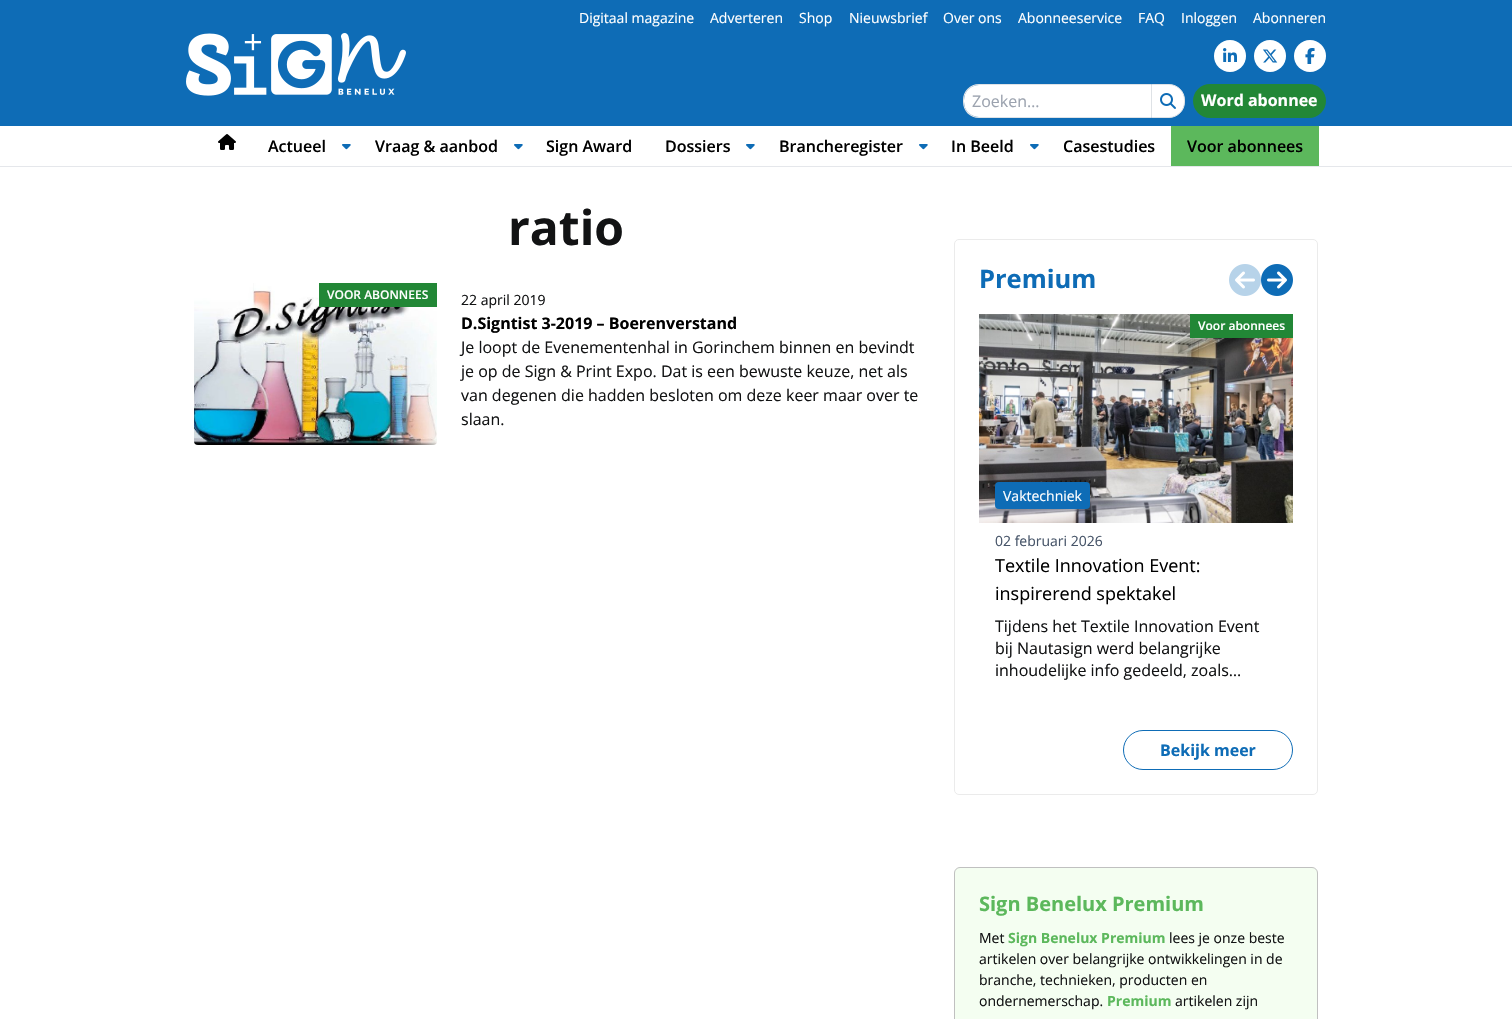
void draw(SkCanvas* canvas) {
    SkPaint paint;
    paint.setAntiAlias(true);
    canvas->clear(0xFFFFFFFF);
    paint.setColor(0xFF0E6CB6);
    canvas->drawRect(SkRect::MakeXYWH(0, 0, 1512, 126), paint);
    SkFont font1(fontMgr->matchFamilyStyle("Open Sans", SkFontStyle::Normal()), 14);
    font1.setSubpixel(true);
    paint.setColor(0xFFFFFFFF);
    canvas->drawString("Digitaal magazine", 579, 23, font1, paint);
    canvas->drawString("Adverteren", 710, 23, font1, paint);
    canvas->drawString("Shop", 799, 23, font1, paint);
    canvas->drawString("Nieuwsbrief", 849, 23, font1, paint);
    canvas->drawString("Over ons", 943, 23, font1, paint);
    canvas->drawString("Abonneeservice", 1018, 23, font1, paint);
    canvas->drawString("FAQ", 1138, 23, font1, paint);
    canvas->drawString("Inloggen", 1181, 23, font1, paint);
    canvas->drawString("Abonneren", 1253, 23, font1, paint);
    canvas->drawImageRect(SkImages::DeferredFromEncodedData(SkData::MakeFromFileName("img1.png")), SkRect::MakeXYWH(186, 33, 220, 63), SkSamplingOptions());
    canvas->drawCircle(1230, 56, 16, paint);
    canvas->drawImageRect(SkImages::DeferredFromEncodedData(SkData::MakeFromFileName("img2.png")), SkRect::MakeXYWH(1223, 48, 14, 14), SkSamplingOptions());
    canvas->drawCircle(1270, 56, 16, paint);
    canvas->drawImageRect(SkImages::DeferredFromEncodedData(SkData::MakeFromFileName("img3.png")), SkRect::MakeXYWH(1263, 49, 15, 14), SkSamplingOptions());
    canvas->drawCircle(1310, 56, 16, paint);
    canvas->drawImageRect(SkImages::DeferredFromEncodedData(SkData::MakeFromFileName("img4.png")), SkRect::MakeXYWH(1305, 48, 10, 16), SkSamplingOptions());
    canvas->drawPath(SkPathBuilder().moveTo(979, 85).lineTo(1151, 85).lineTo(1151, 117).lineTo(979, 117).cubicTo(970.5f, 117, 964, 110.5f, 964, 102).lineTo(964, 100).cubicTo(964, 91.5f, 970.5f, 85, 979, 85).close().detach(), paint);
    paint.setColor(0xFFDEE2E6);
    canvas->drawPath(SkPathBuilder(SkPathFillType::kEvenOdd).moveTo(979, 84).lineTo(1151, 84).lineTo(1151, 118).lineTo(979, 118).cubicTo(970, 118, 963, 111, 963, 102).lineTo(963, 100).cubicTo(963, 91, 970, 84, 979, 84).close().moveTo(979, 85).lineTo(1151, 85).lineTo(1151, 117).lineTo(979, 117).cubicTo(971, 117, 964, 110, 964, 102).lineTo(964, 100).cubicTo(964, 92, 971, 85, 979, 85).close().detach(), paint);
    SkFont font2(fontMgr->matchFamilyStyle("Open Sans", SkFontStyle::Normal()), 16);
    font2.setSubpixel(true);
    paint.setColor(0xFF9CA3AF);
    canvas->drawString("Zoeken…", 972, 107, font2, paint);
    paint.setColor(0xFFFFFFFF);
    canvas->drawPath(SkPathBuilder().moveTo(1151.5f, 84.5f).lineTo(1169, 84.5f).cubicTo(1177.5f, 84.5f, 1184.5f, 91.5f, 1184.5f, 100).lineTo(1184.5f, 102).cubicTo(1184.5f, 110.5f, 1177.5f, 117.5f, 1169, 117.5f).lineTo(1151.5f, 117.5f).close().detach(), paint);
    paint.setStyle(SkPaint::kStroke_Style);
    paint.setStrokeWidth(1);
    paint.setColor(0xFFDEE2E6);
    canvas->drawPath(SkPathBuilder().moveTo(1151.5f, 84.5f).lineTo(1169, 84.5f).cubicTo(1177.5f, 84.5f, 1184.5f, 91.5f, 1184.5f, 100).lineTo(1184.5f, 102).cubicTo(1184.5f, 110.5f, 1177.5f, 117.5f, 1169, 117.5f).lineTo(1151.5f, 117.5f).close().detach(), paint);
    canvas->drawImageRect(SkImages::DeferredFromEncodedData(SkData::MakeFromFileName("img5.png")), SkRect::MakeXYWH(1160, 93, 16, 16), SkSamplingOptions());
    paint.setStyle(SkPaint::kFill_Style);
    paint.setColor(0xFF228736);
    canvas->drawRoundRect(SkRect::MakeXYWH(1193, 84, 133, 34), 17, 17, paint);
    SkFont font3(fontMgr->matchFamilyStyle("Open Sans", SkFontStyle::Bold()), 16);
    font3.setSubpixel(true);
    paint.setColor(0xFFFFFFFF);
    canvas->drawString("Word abonnee", 1201, 106, font3, paint);
    paint.setColor(0xFFE5E7EB);
    canvas->drawRect(SkRect::MakeXYWH(0, 166, 1512, 1), paint);
    canvas->drawImageRect(SkImages::DeferredFromEncodedData(SkData::MakeFromFileName("img6.png")), SkRect::MakeXYWH(218, 134, 18, 16), SkSamplingOptions());
    SkFont font4(fontMgr->matchFamilyStyle("Open Sans", SkFontStyle(600, SkFontStyle::kNormal_Width, SkFontStyle::kUpright_Slant)), 16);
    font4.setSubpixel(true);
    paint.setColor(0xFF000000);
    canvas->drawString("Actueel", 268, 152, font4, paint);
    canvas->drawImageRect(SkImages::DeferredFromEncodedData(SkData::MakeFromFileName("img7.png")), SkRect::MakeXYWH(342, 144, 9, 6), SkSamplingOptions());
    canvas->drawString("Vraag & aanbod", 375, 152, font4, paint);
    canvas->drawImageRect(SkImages::DeferredFromEncodedData(SkData::MakeFromFileName("img7.png")), SkRect::MakeXYWH(514, 144, 9, 6), SkSamplingOptions());
    canvas->drawString("Sign Award", 546, 152, font4, paint);
    canvas->drawString("Dossiers", 665, 152, font4, paint);
    canvas->drawImageRect(SkImages::DeferredFromEncodedData(SkData::MakeFromFileName("img7.png")), SkRect::MakeXYWH(746, 144, 9, 6), SkSamplingOptions());
    canvas->drawString("Brancheregister", 779, 152, font4, paint);
    canvas->drawImageRect(SkImages::DeferredFromEncodedData(SkData::MakeFromFileName("img7.png")), SkRect::MakeXYWH(919, 144, 9, 6), SkSamplingOptions());
    canvas->drawString("In Beeld", 951, 152, font4, paint);
    canvas->drawImageRect(SkImages::DeferredFromEncodedData(SkData::MakeFromFileName("img7.png")), SkRect::MakeXYWH(1030, 144, 9, 6), SkSamplingOptions());
    canvas->drawString("Casestudies", 1063, 152, font4, paint);
    paint.setColor(0xFF5CB85C);
    canvas->drawRect(SkRect::MakeXYWH(1171, 126, 148, 40), paint);
    paint.setColor(0xFF000000);
    canvas->drawString("Voor abonnees", 1187, 152, font4, paint);
    SkFont font5(fontMgr->matchFamilyStyle("Open Sans", SkFontStyle::Bold()), 48);
    font5.setSubpixel(true);
    paint.setColor(0xFF121314);
    canvas->drawString("ratio", 508, 245, font5, paint);
    canvas->drawImageRect(SkImages::DeferredFromEncodedData(SkData::MakeFromFileName("img8.png")), SkRect::MakeXYWH(194, 283, 243, 162), SkSamplingOptions());
    paint.setColor(0xFF228736);
    canvas->drawRect(SkRect::MakeXYWH(319, 283, 118, 24), paint);
    SkFont font6(fontMgr->matchFamilyStyle("Open Sans", SkFontStyle(600, SkFontStyle::kNormal_Width, SkFontStyle::kUpright_Slant)), 12);
    font6.setSubpixel(true);
    paint.setColor(0xFFFFFFFF);
    canvas->drawString("VOOR ABONNEES", 327, 299, font6, paint);
    paint.setColor(0xFF121314);
    canvas->drawString("22 april 2019", 461, 305, font1, paint);
    paint.setColor(0xFF000000);
    canvas->drawString("D.Signtist 3-2019 – Boerenverstand", 461, 329, font3, paint);
    paint.setColor(0xFF121314);
    canvas->drawString("Je loopt de Evenementenhal in Gorinchem binnen en bevindt", 461, 353, font2, paint);
    canvas->drawString("je op de Sign & Print Expo. Dat is een bewuste keuze, net als", 461, 377, font2, paint);
    canvas->drawString("van degenen die hadden besloten om deze keer maar over te", 461, 401, font2, paint);
    canvas->drawString("slaan.", 461, 425, font2, paint);
    paint.setStyle(SkPaint::kStroke_Style);
    paint.setColor(0xFFEBEBEB);
    canvas->drawRoundRect(SkRect::MakeXYWH(954.5f, 239.5f, 363, 555), 4.5f, 4.5f, paint);
    SkFont font7(fontMgr->matchFamilyStyle("Open Sans", SkFontStyle::Bold()), 25.5f);
    font7.setSubpixel(true);
    paint.setStyle(SkPaint::kFill_Style);
    paint.setColor(0xFF0E6CB6);
    canvas->drawString("Premium", 979, 288, font7, paint);
    canvas->drawImageRect(SkImages::DeferredFromEncodedData(SkData::MakeFromFileName("img9.png")), SkRect::MakeXYWH(1229, 264, 32, 32), SkSamplingOptions());
    canvas->drawImageRect(SkImages::DeferredFromEncodedData(SkData::MakeFromFileName("img10.png")), SkRect::MakeXYWH(1261, 264, 32, 32), SkSamplingOptions());
    canvas->drawImageRect(SkImages::DeferredFromEncodedData(SkData::MakeFromFileName("img11.png")), SkRect::MakeXYWH(979, 314, 314, 209), SkSamplingOptions());
    paint.setColor(0xFF228736);
    canvas->drawRect(SkRect::MakeXYWH(1190, 314, 103, 24), paint);
    paint.setColor(0xFFFFFFFF);
    canvas->drawString("Voor abonnees", 1198, 330, font6, paint);
    paint.setColor(0xFF0E6CB6);
    canvas->drawRoundRect(SkRect::MakeXYWH(995, 482, 95, 27), 4, 4, paint);
    paint.setColor(0xFFFFFFFF);
    canvas->drawString("Vaktechniek", 1003, 501, font1, paint);
    paint.setColor(0xFF475569);
    canvas->drawString("02 februari 2026", 995, 546, font1, paint);
    SkFont font8(fontMgr->matchFamilyStyle("Open Sans", SkFontStyle::Normal()), 18);
    font8.setSubpixel(true);
    paint.setColor(0xFF000000);
    canvas->drawString("Textile Innovation Event:", 995, 572, font8, paint);
    canvas->drawString("inspirerend spektakel", 995, 600, font8, paint);
    paint.setColor(0xFF121314);
    canvas->drawString("Tijdens het Textile Innovation Event", 995, 632, font2, paint);
    canvas->drawString("bij Nautasign werd belangrijke", 995, 654, font2, paint);
    canvas->drawString("inhoudelijke info gedeeld, zoals…", 995, 676, font2, paint);
    paint.setStyle(SkPaint::kStroke_Style);
    paint.setColor(0xFF0E6CB6);
    canvas->drawRoundRect(SkRect::MakeXYWH(1123.5f, 730.5f, 169, 39), 19.5f, 19.5f, paint);
    paint.setStyle(SkPaint::kFill_Style);
    canvas->drawString("Bekijk meer", 1160, 756, font3, paint);
    paint.setColor(0xFFF4FEF1);
    canvas->drawRoundRect(SkRect::MakeXYWH(954.5f, 867.5f, 363, 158), 5.5f, 5.5f, paint);
    paint.setStyle(SkPaint::kStroke_Style);
    paint.setColor(0xFFC0C0C0);
    canvas->drawRoundRect(SkRect::MakeXYWH(954.5f, 867.5f, 363, 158), 5.5f, 5.5f, paint);
    SkFont font9(fontMgr->matchFamilyStyle("Open Sans", SkFontStyle::Bold()), 20);
    font9.setSubpixel(true);
    paint.setStyle(SkPaint::kFill_Style);
    paint.setColor(0xFF5CB85C);
    canvas->drawString("Sign Benelux Premium", 979, 911, font9, paint);
    paint.setColor(0xFF121314);
    canvas->drawString("Met", 979, 943, font1, paint);
    SkFont font10(fontMgr->matchFamilyStyle("Open Sans", SkFontStyle::Bold()), 14);
    font10.setSubpixel(true);
    paint.setColor(0xFF5CB85C);
    canvas->drawString("Sign Benelux Premium", 1008, 943, font10, paint);
    paint.setColor(0xFF121314);
    canvas->drawString("lees je onze beste", 1169, 943, font1, paint);
    canvas->drawString("artikelen over belangrijke ontwikkelingen in de", 979, 964, font1, paint);
    canvas->drawString("branche, technieken, producten en", 979, 985, font1, paint);
    canvas->drawString("ondernemerschap.", 979, 1006, font1, paint);
    paint.setColor(0xFF5CB85C);
    canvas->drawString("Premium", 1107, 1006, font10, paint);
    paint.setColor(0xFF121314);
    canvas->drawString("artikelen zijn", 1175, 1006, font1, paint);
}
